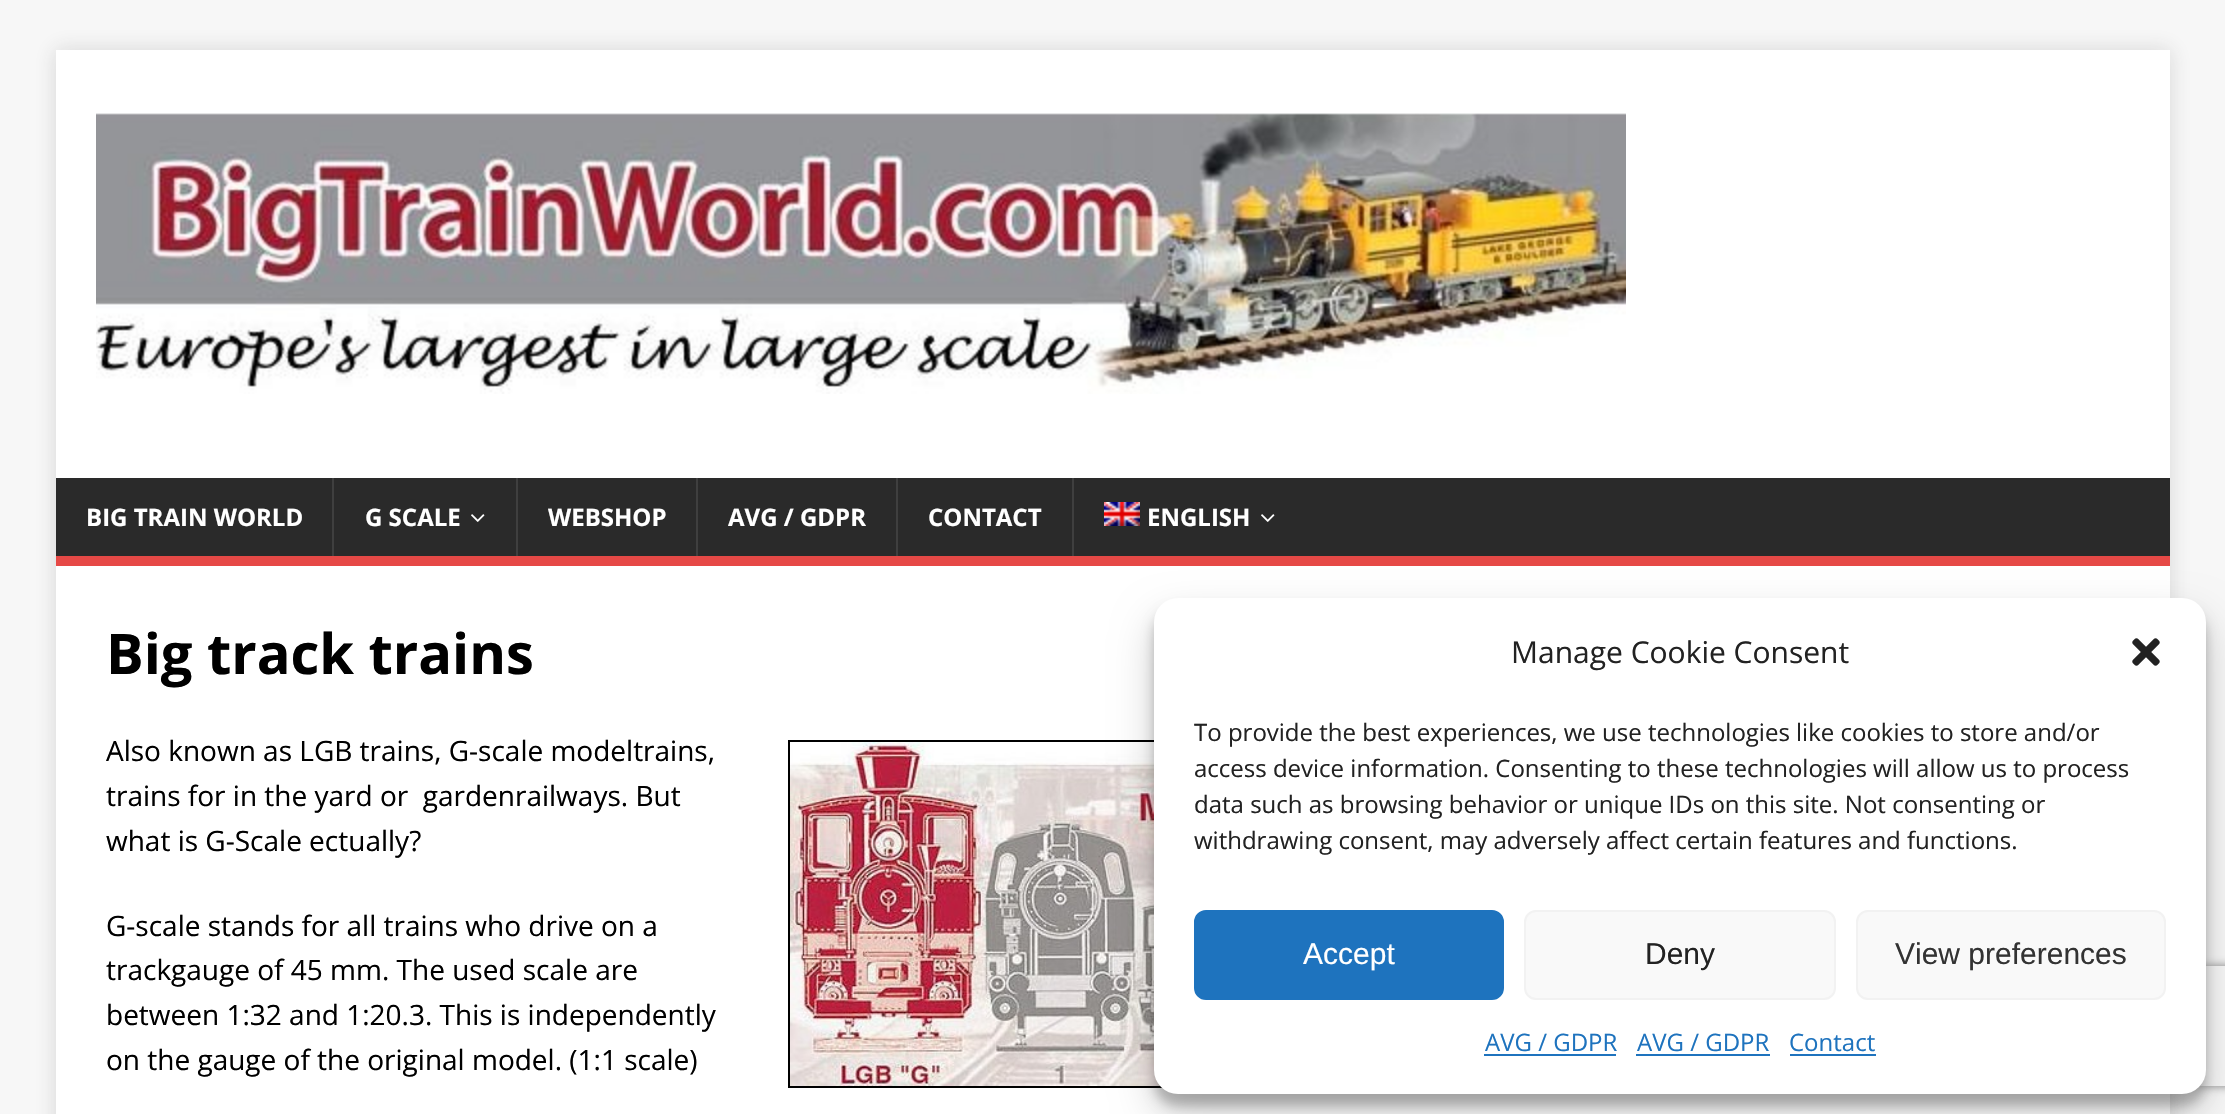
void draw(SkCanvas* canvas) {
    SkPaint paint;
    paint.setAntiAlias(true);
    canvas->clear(0xFFF7F7F7);
    paint.setColor(0x2B323232);
    paint.setMaskFilter(SkMaskFilter::MakeBlur(kNormal_SkBlurStyle, 10));
    canvas->drawRect(SkRect::MakeXYWH(56, 50, 2114, 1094), paint);
    paint.setMaskFilter(nullptr);
    paint.setColor(0xFFFFFFFF);
    canvas->drawRect(SkRect::MakeXYWH(56, 50, 2114, 428), paint);
    canvas->drawImageRect(SkImages::DeferredFromEncodedData(SkData::MakeFromFileName("img1.png")), SkRect::MakeXYWH(96, 113, 1530, 281), SkSamplingOptions());
    paint.setColor(0xFF2A2A2A);
    canvas->drawRect(SkRect::MakeXYWH(56, 478, 2114, 78), paint);
    paint.setColor(0xFFE64946);
    canvas->drawRect(SkRect::MakeXYWH(56, 556, 2114, 10), paint);
    SkFont font1(fontMgr->matchFamilyStyle("Open Sans", SkFontStyle::Bold()), 24);
    font1.setSubpixel(true);
    paint.setColor(0xFFFFFFFF);
    canvas->drawString("BIG TRAIN WORLD", 86, 526, font1, paint);
    paint.setColor(0xFF3F3F3F);
    canvas->drawRect(SkRect::MakeXYWH(332, 478, 2, 78), paint);
    paint.setColor(0xFFFFFFFF);
    canvas->drawString("G SCALE", 365, 526, font1, paint);
    canvas->drawImageRect(SkImages::DeferredFromEncodedData(SkData::MakeFromFileName("img2.png")), SkRect::MakeXYWH(471, 514, 14, 8), SkSamplingOptions());
    paint.setColor(0xFF3F3F3F);
    canvas->drawRect(SkRect::MakeXYWH(516, 478, 2, 78), paint);
    paint.setColor(0xFFFFFFFF);
    canvas->drawString("WEBSHOP", 548, 526, font1, paint);
    paint.setColor(0xFF3F3F3F);
    canvas->drawRect(SkRect::MakeXYWH(696, 478, 2, 78), paint);
    paint.setColor(0xFFFFFFFF);
    canvas->drawString("AVG / GDPR", 728, 526, font1, paint);
    paint.setColor(0xFF3F3F3F);
    canvas->drawRect(SkRect::MakeXYWH(896, 478, 2, 78), paint);
    paint.setColor(0xFFFFFFFF);
    canvas->drawString("CONTACT", 928, 526, font1, paint);
    paint.setColor(0xFF3F3F3F);
    canvas->drawRect(SkRect::MakeXYWH(1072, 478, 2, 78), paint);
    canvas->drawImageRect(SkImages::DeferredFromEncodedData(SkData::MakeFromFileName("img3.png")), SkRect::MakeXYWH(1104, 502, 36, 24), SkSamplingOptions());
    paint.setColor(0xFFFFFFFF);
    canvas->drawString("ENGLISH", 1147, 526, font1, paint);
    canvas->drawImageRect(SkImages::DeferredFromEncodedData(SkData::MakeFromFileName("img2.png")), SkRect::MakeXYWH(1261, 514, 14, 8), SkSamplingOptions());
    canvas->drawRect(SkRect::MakeXYWH(56, 566, 2114, 548), paint);
    SkFont font2(fontMgr->matchFamilyStyle("Open Sans", SkFontStyle::Bold()), 56);
    font2.setSubpixel(true);
    paint.setColor(0xFF000000);
    canvas->drawString("Big track trains", 106, 674, font2, paint);
    SkFont font3(fontMgr->matchFamilyStyle("Open Sans", SkFontStyle::Normal()), 28);
    font3.setSubpixel(true);
    canvas->drawString("Also known as LGB trains, G-scale modeltrains,", 106, 761, font3, paint);
    paint.setStyle(SkPaint::kStroke_Style);
    paint.setStrokeWidth(2);
    canvas->drawRect(SkRect::MakeXYWH(789, 741, 642, 346), paint);
    canvas->drawImageRect(SkImages::DeferredFromEncodedData(SkData::MakeFromFileName("img4.png")), SkRect::MakeXYWH(790, 742, 371, 344), SkSamplingOptions());
    paint.setStyle(SkPaint::kFill_Style);
    canvas->drawString("trains for in the yard or  gardenrailways. But", 106, 806, font3, paint);
    canvas->drawString("what is G-Scale ectually?", 106, 851, font3, paint);
    canvas->drawString("G-scale stands for all trains who drive on a", 106, 936, font3, paint);
    canvas->drawString("trackgauge of 45 mm. The used scale are", 106, 980, font3, paint);
    canvas->drawString("between 1:32 and 1:20.3. This is independently", 106, 1025, font3, paint);
    canvas->drawString("on the gauge of the original model. (1:1 scale)", 106, 1070, font3, paint);
    paint.setColor(0x3B000000);
    paint.setMaskFilter(SkMaskFilter::MakeBlur(kNormal_SkBlurStyle, 6));
    canvas->drawRoundRect(SkRect::MakeXYWH(1154, 610, 1052, 496), 24, 24, paint);
    paint.setMaskFilter(nullptr);
    paint.setColor(0x30000000);
    paint.setMaskFilter(SkMaskFilter::MakeBlur(kNormal_SkBlurStyle, 20));
    canvas->drawRoundRect(SkRect::MakeXYWH(1154, 618, 1052, 496), 24, 24, paint);
    paint.setMaskFilter(nullptr);
    canvas->save();
    canvas->clipPath(SkPathBuilder(SkPathFillType::kEvenOdd).moveTo(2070, 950).lineTo(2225, 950).lineTo(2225, 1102).lineTo(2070, 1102).close().moveTo(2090, 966).lineTo(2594, 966).cubicTo(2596, 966, 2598, 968, 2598, 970).lineTo(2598, 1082).cubicTo(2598, 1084, 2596, 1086, 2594, 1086).lineTo(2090, 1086).cubicTo(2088, 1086, 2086, 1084, 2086, 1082).lineTo(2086, 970).cubicTo(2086, 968, 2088, 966, 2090, 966).close().detach(), true);
    paint.setColor(0xFF808080);
    paint.setMaskFilter(SkMaskFilter::MakeBlur(kNormal_SkBlurStyle, 5));
    canvas->drawRoundRect(SkRect::MakeXYWH(2086, 966, 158, 120), 4, 4, paint);
    paint.setMaskFilter(nullptr);
    canvas->restore();
    paint.setColor(0xFFFFFFFF);
    canvas->drawRoundRect(SkRect::MakeXYWH(1154, 598, 1052, 496), 24, 24, paint);
    SkFont font4(fontMgr->matchFamilyStyle("Open Sans", SkFontStyle::Normal()), 30);
    font4.setSubpixel(true);
    paint.setColor(0xFF222222);
    canvas->drawString("Manage Cookie Consent", 1511, 663, font4, paint);
    canvas->drawImageRect(SkImages::DeferredFromEncodedData(SkData::MakeFromFileName("img5.png")), SkRect::MakeXYWH(2132, 638, 28, 28), SkSamplingOptions());
    SkFont font5(fontMgr->matchFamilyStyle("Open Sans", SkFontStyle::Normal()), 24);
    font5.setSubpixel(true);
    canvas->drawString("To provide the best experiences, we use technologies like cookies to store and/or", 1194, 741, font5, paint);
    canvas->drawString("access device information. Consenting to these technologies will allow us to process", 1194, 777, font5, paint);
    canvas->drawString("data such as browsing behavior or unique IDs on this site. Not consenting or", 1194, 813, font5, paint);
    canvas->drawString("withdrawing consent, may adversely affect certain features and functions.", 1194, 849, font5, paint);
    paint.setColor(0xFF1E73BE);
    canvas->drawRoundRect(SkRect::MakeXYWH(1195, 911, 308, 88), 11, 11, paint);
    paint.setStyle(SkPaint::kStroke_Style);
    canvas->drawRoundRect(SkRect::MakeXYWH(1195, 911, 308, 88), 11, 11, paint);
    SkFont font6(fontMgr->matchFamilyStyle("Liberation Sans", SkFontStyle::Normal()), 30);
    font6.setSubpixel(true);
    paint.setStyle(SkPaint::kFill_Style);
    paint.setColor(0xFFFFFFFF);
    canvas->drawString("Accept", 1303, 964, font6, paint);
    paint.setColor(0xFFF9F9F9);
    canvas->drawRoundRect(SkRect::MakeXYWH(1525, 911, 310, 88), 11, 11, paint);
    paint.setStyle(SkPaint::kStroke_Style);
    paint.setColor(0xFFF2F2F2);
    canvas->drawRoundRect(SkRect::MakeXYWH(1525, 911, 310, 88), 11, 11, paint);
    paint.setStyle(SkPaint::kFill_Style);
    paint.setColor(0xFF222222);
    canvas->drawString("Deny", 1645, 964, font6, paint);
    paint.setColor(0xFFF9F9F9);
    canvas->drawRoundRect(SkRect::MakeXYWH(1857, 911, 308, 88), 11, 11, paint);
    paint.setStyle(SkPaint::kStroke_Style);
    paint.setColor(0xFFF2F2F2);
    canvas->drawRoundRect(SkRect::MakeXYWH(1857, 911, 308, 88), 11, 11, paint);
    paint.setStyle(SkPaint::kFill_Style);
    paint.setColor(0xFF333333);
    canvas->drawString("View preferences", 1895, 964, font6, paint);
    paint.setColor(0xFF1E73BE);
    canvas->drawString("AVG / GDPR", 1485, 1051, font5, paint);
    canvas->drawRect(SkRect::MakeXYWH(1484, 1054, 132, 2), paint);
    canvas->drawString("AVG / GDPR", 1637, 1051, font5, paint);
    canvas->drawRect(SkRect::MakeXYWH(1636, 1054, 134, 2), paint);
    canvas->drawString("Contact", 1789, 1051, font5, paint);
    canvas->drawRect(SkRect::MakeXYWH(1790, 1054, 86, 2), paint);
}
